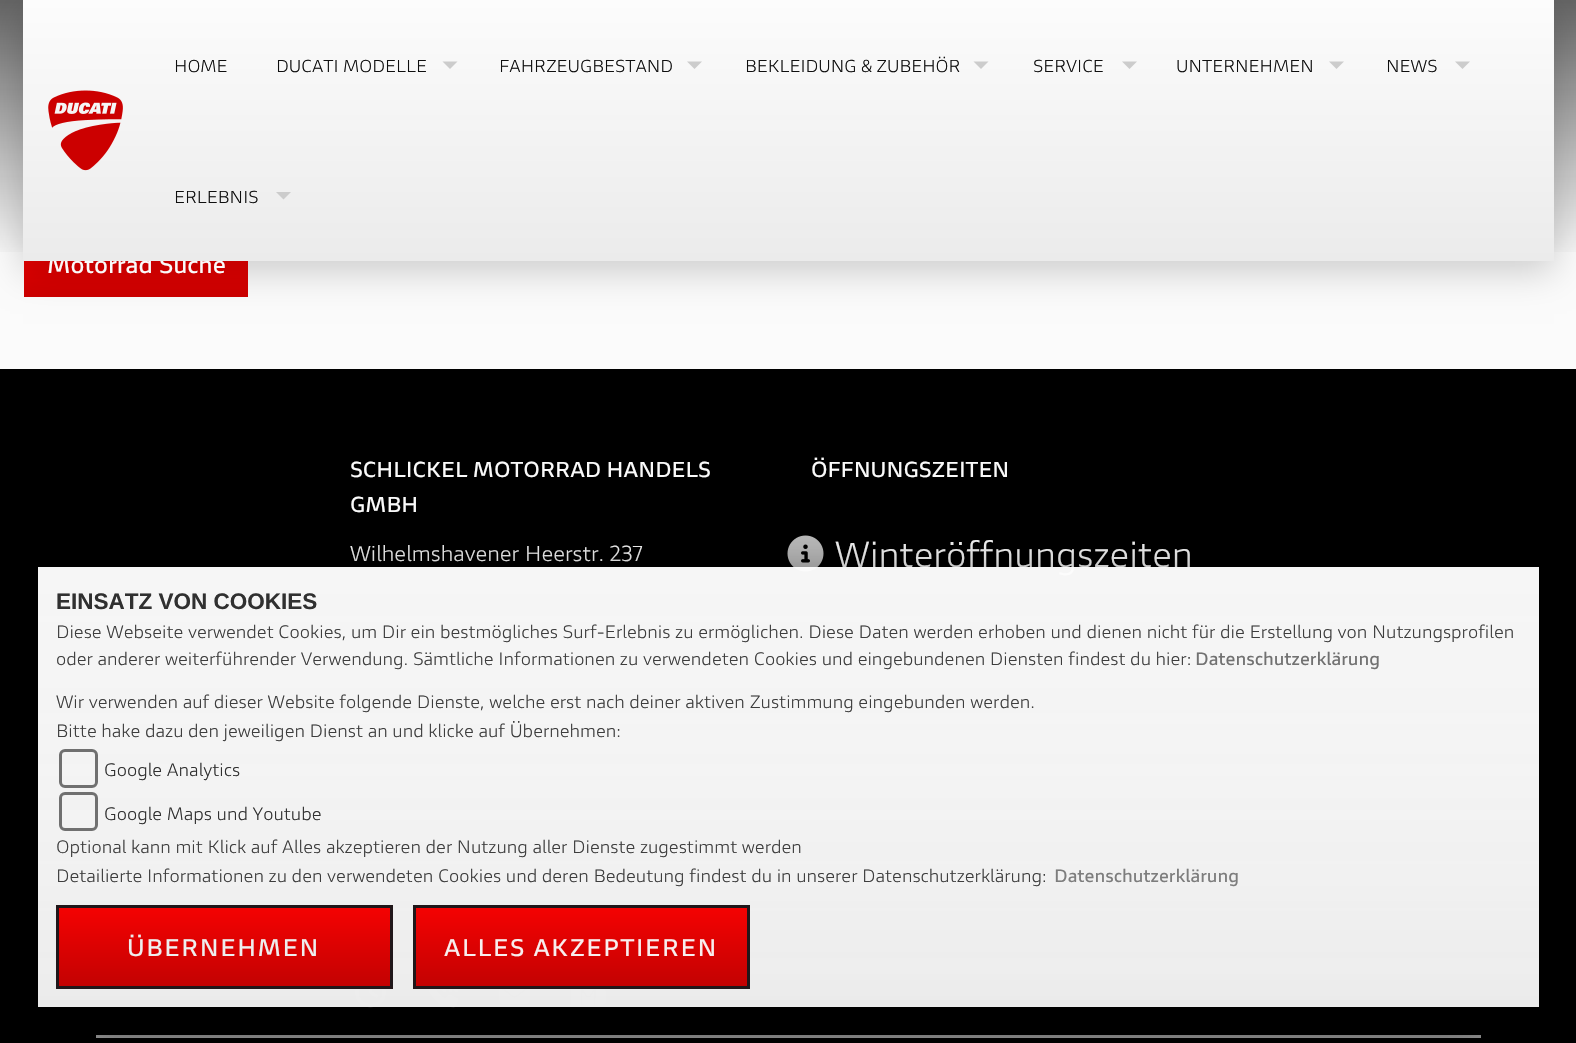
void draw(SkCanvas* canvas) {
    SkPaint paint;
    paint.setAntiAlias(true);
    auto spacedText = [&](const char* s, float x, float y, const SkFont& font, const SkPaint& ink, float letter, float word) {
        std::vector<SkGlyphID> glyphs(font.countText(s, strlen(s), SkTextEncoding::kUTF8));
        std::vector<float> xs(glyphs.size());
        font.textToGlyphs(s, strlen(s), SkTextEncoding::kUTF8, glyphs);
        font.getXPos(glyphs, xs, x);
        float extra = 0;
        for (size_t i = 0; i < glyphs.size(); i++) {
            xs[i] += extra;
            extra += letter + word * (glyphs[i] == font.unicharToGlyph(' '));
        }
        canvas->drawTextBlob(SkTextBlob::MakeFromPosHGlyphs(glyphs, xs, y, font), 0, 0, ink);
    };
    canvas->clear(0xFFFBFBFB);
    {
        const SkColor colors[] = {0x00000000, 0x99000000};
        const float stops[] = {0, 1};
        const SkPoint ends[] = {{788, 261}, {788, 0}};
        paint.setShader(SkGradientShader::MakeLinear(ends, colors, stops, 2, SkTileMode::kClamp));
        paint.setAlpha(255);
    }
    canvas->drawRect(SkRect::MakeXYWH(0, 0, 1576, 252), paint);
    {
        const SkColor colors[] = {0xFFFF0000, 0xFFCC0000};
        const float stops[] = {0, 1};
        const SkPoint ends[] = {{136, 231}, {136, 297}};
        paint.setShader(SkGradientShader::MakeLinear(ends, colors, stops, 2, SkTileMode::kClamp));
        paint.setAlpha(255);
    }
    canvas->drawRect(SkRect::MakeXYWH(24, 261, 224, 36), paint);
    paint.setShader(nullptr);
    paint.setColor(0x33000000);
    paint.setMaskFilter(SkMaskFilter::MakeBlur(kNormal_SkBlurStyle, 18));
    canvas->drawRect(SkRect::MakeXYWH(23, 9, 1531, 261), paint);
    paint.setMaskFilter(nullptr);
    SkFont font1(fontMgr->matchFamilyStyle("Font", SkFontStyle::Bold()), 24);
    font1.setSubpixel(true);
    paint.setColor(0xFFFAFAFA);
    canvas->drawString("Motorrad Suche", 47, 273, font1, paint);
    {
        const SkColor colors[] = {0xFFFCFCFC, 0xFFEBEBEB};
        const float stops[] = {0, 1};
        const SkPoint ends[] = {{788, 0}, {788, 261}};
        paint.setShader(SkGradientShader::MakeLinear(ends, colors, stops, 2, SkTileMode::kClamp));
        paint.setAlpha(255);
    }
    canvas->drawRect(SkRect::MakeXYWH(23, 0, 1531, 261), paint);
    canvas->drawImageRect(SkImages::DeferredFromEncodedData(SkData::MakeFromFileName("img1.png")), SkRect::MakeXYWH(48, 90, 75, 81), SkSamplingOptions());
    SkFont font2(fontMgr->matchFamilyStyle("Font", SkFontStyle::Normal()), 17.25f);
    font2.setSubpixel(true);
    paint.setShader(nullptr);
    paint.setColor(0xFF0F0F0F);
    canvas->drawString("HOME", 174, 72, font2, paint);
    canvas->drawString("DUCATI MODELLE", 276, 72, font2, paint);
    paint.setColor(0xFFCCCCCC);
    canvas->drawPath(SkPathBuilder().moveTo(442.5f, 61.5f).lineTo(457.5f, 61.5f).lineTo(450, 69).close().detach(), paint);
    paint.setColor(0xFF0F0F0F);
    canvas->drawString("FAHRZEUGBESTAND", 499, 72, font2, paint);
    paint.setColor(0xFFCCCCCC);
    canvas->drawPath(SkPathBuilder().moveTo(687, 61.5f).lineTo(702, 61.5f).lineTo(694.5f, 69).close().detach(), paint);
    paint.setColor(0xFF0F0F0F);
    canvas->drawString("BEKLEIDUNG & ZUBEHÖR", 745, 72, font2, paint);
    paint.setColor(0xFFCCCCCC);
    canvas->drawPath(SkPathBuilder().moveTo(973.5f, 61.5f).lineTo(988.5f, 61.5f).lineTo(981, 69).close().detach(), paint);
    paint.setColor(0xFF0F0F0F);
    canvas->drawString("SERVICE", 1033, 72, font2, paint);
    paint.setColor(0xFFCCCCCC);
    canvas->drawPath(SkPathBuilder().moveTo(1122, 61.5f).lineTo(1137, 61.5f).lineTo(1129.5f, 69).close().detach(), paint);
    paint.setColor(0xFF0F0F0F);
    canvas->drawString("UNTERNEHMEN", 1176, 72, font2, paint);
    paint.setColor(0xFFCCCCCC);
    canvas->drawPath(SkPathBuilder().moveTo(1329, 61.5f).lineTo(1344, 61.5f).lineTo(1336.5f, 69).close().detach(), paint);
    paint.setColor(0xFF0F0F0F);
    canvas->drawString("NEWS", 1386, 72, font2, paint);
    paint.setColor(0xFFCCCCCC);
    canvas->drawPath(SkPathBuilder().moveTo(1455, 61.5f).lineTo(1470, 61.5f).lineTo(1462.5f, 69).close().detach(), paint);
    paint.setColor(0xFF0F0F0F);
    canvas->drawString("ERLEBNIS", 174, 203, font2, paint);
    paint.setColor(0xFFCCCCCC);
    canvas->drawPath(SkPathBuilder().moveTo(276, 192).lineTo(291, 192).lineTo(283.5f, 199.5f).close().detach(), paint);
    paint.setColor(0xFF000000);
    canvas->drawRect(SkRect::MakeXYWH(0, 369, 1576, 674), paint);
    SkFont font3(fontMgr->matchFamilyStyle("Font", SkFontStyle::Bold()), 21.6f);
    font3.setSubpixel(true);
    paint.setColor(0xFFFAFAFA);
    canvas->drawString("SCHLICKEL MOTORRAD HANDELS", 350, 477, font3, paint);
    canvas->drawString("GMBH", 350, 512, font3, paint);
    SkFont font4(fontMgr->matchFamilyStyle("Font", SkFontStyle::Normal()), 21.6f);
    font4.setSubpixel(true);
    canvas->drawString("Wilhelmshavener Heerstr. 237", 350, 561, font4, paint);
    canvas->drawImageRect(SkImages::DeferredFromEncodedData(SkData::MakeFromFileName("img2.png")), SkRect::MakeXYWH(355, 989, 31, 19), SkSamplingOptions());
    canvas->drawImageRect(SkImages::DeferredFromEncodedData(SkData::MakeFromFileName("img3.png")), SkRect::MakeXYWH(428, 989, 30, 19), SkSamplingOptions());
    canvas->drawImageRect(SkImages::DeferredFromEncodedData(SkData::MakeFromFileName("img4.png")), SkRect::MakeXYWH(499, 989, 31, 15), SkSamplingOptions());
    canvas->drawImageRect(SkImages::DeferredFromEncodedData(SkData::MakeFromFileName("img5.png")), SkRect::MakeXYWH(571, 989, 35, 18), SkSamplingOptions());
    canvas->drawString("ÖFFNUNGSZEITEN", 811, 477, font3, paint);
    canvas->drawImageRect(SkImages::DeferredFromEncodedData(SkData::MakeFromFileName("img6.png")), SkRect::MakeXYWH(787, 535, 37, 37), SkSamplingOptions());
    SkFont font5(fontMgr->matchFamilyStyle("Font", SkFontStyle::Normal()), 36);
    font5.setSubpixel(true);
    canvas->drawString("Winteröffnungszeiten", 835, 567, font5, paint);
    paint.setColor(0xFFFFFFFF);
    canvas->drawRect(SkRect::MakeXYWH(96, 1035, 1385, 3), paint);
    canvas->save();
    canvas->clipRect(SkRect::MakeXYWH(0, 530, 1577, 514));
    canvas->clipPath(SkPathBuilder(SkPathFillType::kEvenOdd).moveTo(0, 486).lineTo(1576, 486).lineTo(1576, 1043).lineTo(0, 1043).close().moveTo(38, 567).lineTo(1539, 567).lineTo(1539, 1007).lineTo(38, 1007).close().detach(), true);
    paint.setColor(0xF2000000);
    paint.setMaskFilter(SkMaskFilter::MakeBlur(kNormal_SkBlurStyle, 37.5f));
    canvas->drawRect(SkRect::MakeXYWH(38, 600, 1501, 440), paint);
    paint.setMaskFilter(nullptr);
    canvas->restore();
    paint.setColor(0xF2FAFAFA);
    canvas->drawRect(SkRect::MakeXYWH(38, 567, 1501, 440), paint);
    {
        const SkColor colors[] = {0x78FFFFFF, 0xF2EBEBEB};
        const float stops[] = {0, 1};
        const SkPoint ends[] = {{788, 567}, {788, 1007}};
        paint.setShader(SkGradientShader::MakeLinear(ends, colors, stops, 2, SkTileMode::kClamp));
        paint.setAlpha(255);
    }
    canvas->drawRect(SkRect::MakeXYWH(38, 567, 1501, 440), paint);
    SkFont font6(fontMgr->matchFamilyStyle("Liberation Sans", SkFontStyle::Bold()), 22.5f);
    font6.setSubpixel(true);
    paint.setShader(nullptr);
    paint.setColor(0xFF303030);
    canvas->drawString("EINSATZ VON COOKIES", 56, 609, font6, paint);
    SkFont font7(fontMgr->matchFamilyStyle("Font", SkFontStyle::Normal()), 18);
    font7.setSubpixel(true);
    paint.setColor(0xFF3D3D3D);
    canvas->drawString("Diese Webseite verwendet Cookies, um Dir ein bestmögliches Surf-Erlebnis zu ermöglichen. Diese Daten werden erhoben und dienen nicht für die Erstellung von Nutzungsprofilen", 56, 638, font7, paint);
    canvas->drawString("oder anderer weiterführender Verwendung. Sämtliche Informationen zu verwendeten Cookies und eingebundenen Diensten findest du hier:", 56, 665, font7, paint);
    SkFont font8(fontMgr->matchFamilyStyle("Font", SkFontStyle::Bold()), 18);
    font8.setSubpixel(true);
    paint.setColor(0xFF717171);
    canvas->drawString("Datenschutzerklärung", 1195, 665, font8, paint);
    paint.setColor(0xFF3D3D3D);
    canvas->drawString("Wir verwenden auf dieser Website folgende Dienste, welche erst nach deiner aktiven Zustimmung eingebunden werden.", 56, 708, font7, paint);
    canvas->drawString("Bitte hake dazu den jeweiligen Dienst an und klicke auf Übernehmen:", 56, 737, font7, paint);
    paint.setStyle(SkPaint::kStroke_Style);
    paint.setStrokeWidth(3);
    paint.setColor(0xFF707070);
    canvas->drawRoundRect(SkRect::MakeXYWH(60.5f, 750.5f, 36, 36), 4.5f, 4.5f, paint);
    paint.setStyle(SkPaint::kFill_Style);
    paint.setColor(0xFF303030);
    canvas->drawString("Google Analytics", 104, 776, font7, paint);
    paint.setStyle(SkPaint::kStroke_Style);
    paint.setColor(0xFF707070);
    canvas->drawRoundRect(SkRect::MakeXYWH(60.5f, 793.5f, 36, 36), 4.5f, 4.5f, paint);
    paint.setStyle(SkPaint::kFill_Style);
    paint.setColor(0xFF303030);
    canvas->drawString("Google Maps und Youtube", 104, 820, font7, paint);
    paint.setColor(0xFF3D3D3D);
    canvas->drawString("Optional kann mit Klick auf Alles akzeptieren der Nutzung aller Dienste zugestimmt werden", 56, 853, font7, paint);
    canvas->drawString("Detailierte Informationen zu den verwendeten Cookies und deren Bedeutung findest du in unserer Datenschutzerklärung:", 56, 882, font7, paint);
    paint.setColor(0xFF7D7D7D);
    canvas->drawString("Datenschutzerklärung", 1054, 882, font8, paint);
    {
        const SkColor colors[] = {0xFFF20000, 0xFFC20000};
        const float stops[] = {0, 1};
        const SkPoint ends[] = {{224, 830}, {224, 908}};
        paint.setShader(SkGradientShader::MakeLinear(ends, colors, stops, 2, SkTileMode::kClamp));
        paint.setAlpha(255);
    }
    canvas->drawRect(SkRect::MakeXYWH(56, 905, 337, 3), paint);
    {
        const SkColor colors[] = {0xFFF40202, 0xFFC30202};
        const float stops[] = {0, 1};
        const SkPoint ends[] = {{224, 908}, {224, 986}};
        paint.setShader(SkGradientShader::MakeLinear(ends, colors, stops, 2, SkTileMode::kClamp));
        paint.setAlpha(255);
    }
    canvas->drawRect(SkRect::MakeXYWH(56, 908, 337, 78), paint);
    {
        const SkColor colors[] = {0xFFF40202, 0xFFC30202};
        const float stops[] = {0, 1};
        const SkPoint ends[] = {{224, 986}, {224, 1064}};
        paint.setShader(SkGradientShader::MakeLinear(ends, colors, stops, 2, SkTileMode::kClamp));
        paint.setAlpha(255);
    }
    canvas->drawRect(SkRect::MakeXYWH(56, 986, 337, 3), paint);
    paint.setStyle(SkPaint::kStroke_Style);
    paint.setShader(nullptr);
    paint.setColor(0xF216171A);
    canvas->drawRect(SkRect::MakeXYWH(57.5f, 906.5f, 334, 81), paint);
    paint.setStyle(SkPaint::kFill_Style);
    paint.setColor(0xFFEEEEEE);
    spacedText("ÜBERNEHMEN", 127, 956, font1, paint, 1.6f, 0);
    {
        const SkColor colors[] = {0xFFF20000, 0xFFC20000};
        const float stops[] = {0, 1};
        const SkPoint ends[] = {{581, 830}, {581, 908}};
        paint.setShader(SkGradientShader::MakeLinear(ends, colors, stops, 2, SkTileMode::kClamp));
        paint.setAlpha(255);
    }
    canvas->drawRect(SkRect::MakeXYWH(413, 905, 337, 3), paint);
    {
        const SkColor colors[] = {0xFFF40202, 0xFFC30202};
        const float stops[] = {0, 1};
        const SkPoint ends[] = {{581, 908}, {581, 986}};
        paint.setShader(SkGradientShader::MakeLinear(ends, colors, stops, 2, SkTileMode::kClamp));
        paint.setAlpha(255);
    }
    canvas->drawRect(SkRect::MakeXYWH(413, 908, 337, 78), paint);
    {
        const SkColor colors[] = {0xFFF40202, 0xFFC30202};
        const float stops[] = {0, 1};
        const SkPoint ends[] = {{581, 986}, {581, 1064}};
        paint.setShader(SkGradientShader::MakeLinear(ends, colors, stops, 2, SkTileMode::kClamp));
        paint.setAlpha(255);
    }
    canvas->drawRect(SkRect::MakeXYWH(413, 986, 337, 3), paint);
    paint.setStyle(SkPaint::kStroke_Style);
    paint.setShader(nullptr);
    paint.setColor(0xF216171A);
    canvas->drawRect(SkRect::MakeXYWH(414.5f, 906.5f, 334, 81), paint);
    paint.setStyle(SkPaint::kFill_Style);
    paint.setColor(0xFFF8EEEE);
    spacedText("ALLES AKZEPTIEREN", 444, 956, font1, paint, 1.6f, 0);
}
